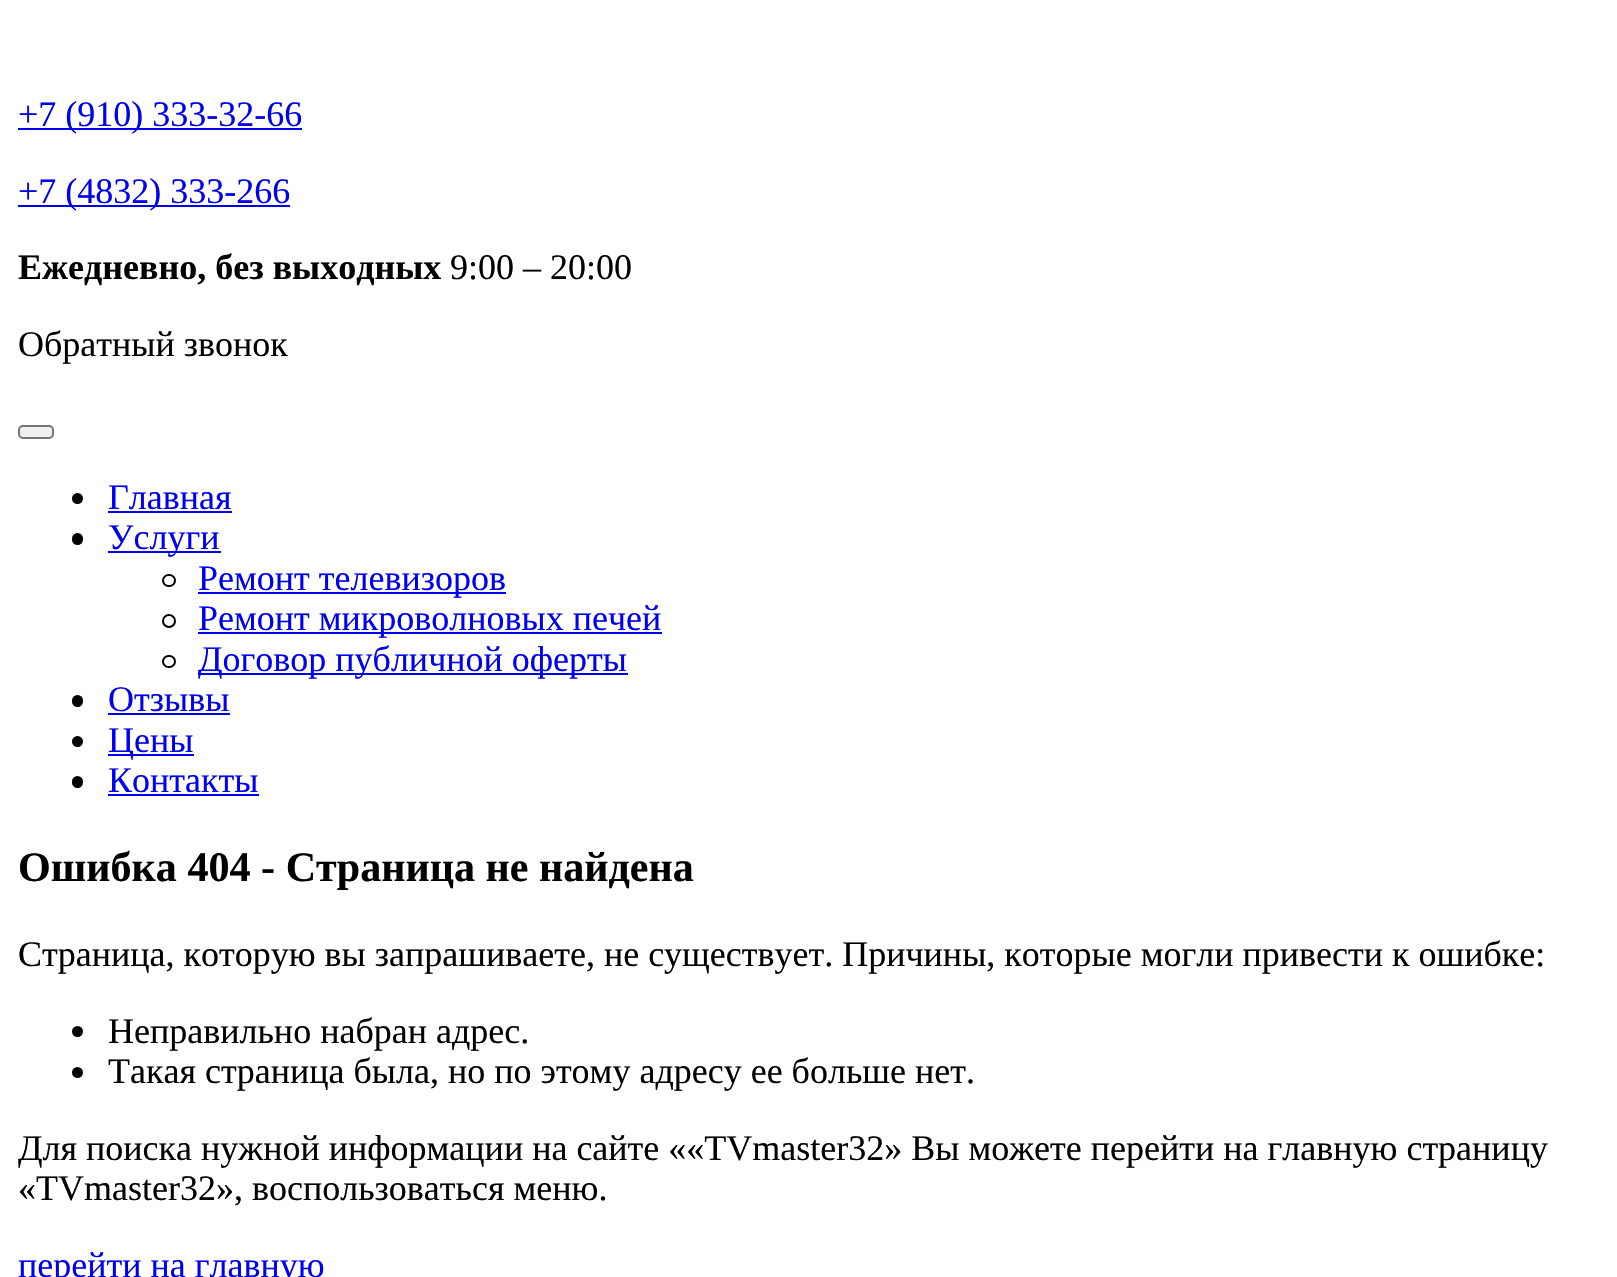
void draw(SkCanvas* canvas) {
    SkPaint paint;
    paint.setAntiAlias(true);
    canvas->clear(0xFFFFFFFF);
    paint.setColor(0xFF0000EE);
    canvas->drawRect(SkRect::MakeXYWH(18, 128, 284, 2), paint);
    SkFont font1(fontMgr->matchFamilyStyle("Liberation Serif", SkFontStyle::Normal()), 36);
    font1.setSubpixel(true);
    canvas->drawString("+7 (910) 333-32-66", 18, 126, font1, paint);
    canvas->drawRect(SkRect::MakeXYWH(18, 205, 272, 2), paint);
    canvas->drawString("+7 (4832) 333-266", 18, 203, font1, paint);
    SkFont font2(fontMgr->matchFamilyStyle("Liberation Serif", SkFontStyle::Bold()), 36);
    font2.setSubpixel(true);
    paint.setColor(0xFF000000);
    canvas->drawString("Ежедневно, без выходных", 18, 279, font2, paint);
    canvas->drawString("9:00 – 20:00", 450, 279, font1, paint);
    canvas->drawString("Обратный звонок", 18, 356, font1, paint);
    paint.setColor(0xFFEFEFEF);
    canvas->drawRoundRect(SkRect::MakeXYWH(19, 426, 34, 12), 4, 4, paint);
    paint.setStyle(SkPaint::kStroke_Style);
    paint.setStrokeWidth(2);
    paint.setColor(0xFF767676);
    canvas->drawRoundRect(SkRect::MakeXYWH(19, 426, 34, 12), 4, 4, paint);
    paint.setStyle(SkPaint::kFill_Style);
    paint.setColor(0xFF000000);
    canvas->drawCircle(77.5f, 498.5f, 5.5f, paint);
    paint.setColor(0xFF0000EE);
    canvas->drawString("Главная", 108, 509, font1, paint);
    canvas->drawRect(SkRect::MakeXYWH(108, 511, 124, 2), paint);
    paint.setColor(0xFF000000);
    canvas->drawRoundRect(SkRect::MakeXYWH(72, 533, 11, 12), 5.5f, 5.5f, paint);
    paint.setColor(0xFF0000EE);
    canvas->drawRect(SkRect::MakeXYWH(108, 551, 113, 2), paint);
    canvas->drawString("Услуги", 108, 549, font1, paint);
    paint.setStyle(SkPaint::kStroke_Style);
    paint.setColor(0xFF000000);
    canvas->drawRoundRect(SkRect::MakeXYWH(163, 575, 12, 11), 5.5f, 5.5f, paint);
    paint.setStyle(SkPaint::kFill_Style);
    paint.setColor(0xFF0000EE);
    canvas->drawRect(SkRect::MakeXYWH(198, 592, 308, 2), paint);
    canvas->drawString("Ремонт телевизоров", 198, 590, font1, paint);
    paint.setStyle(SkPaint::kStroke_Style);
    paint.setColor(0xFF000000);
    canvas->drawCircle(169, 621, 6, paint);
    paint.setStyle(SkPaint::kFill_Style);
    paint.setColor(0xFF0000EE);
    canvas->drawRect(SkRect::MakeXYWH(198, 632, 464, 2), paint);
    canvas->drawString("Ремонт микроволновых печей", 198, 630, font1, paint);
    paint.setStyle(SkPaint::kStroke_Style);
    paint.setColor(0xFF000000);
    canvas->drawRoundRect(SkRect::MakeXYWH(163, 656, 12, 11), 5.5f, 5.5f, paint);
    paint.setStyle(SkPaint::kFill_Style);
    paint.setColor(0xFF0000EE);
    canvas->drawRect(SkRect::MakeXYWH(198, 673, 430, 2), paint);
    canvas->drawString("Договор публичной оферты", 198, 671, font1, paint);
    paint.setColor(0xFF000000);
    canvas->drawRoundRect(SkRect::MakeXYWH(72, 695, 11, 12), 5.5f, 5.5f, paint);
    paint.setColor(0xFF0000EE);
    canvas->drawString("Отзывы", 108, 711, font1, paint);
    canvas->drawRect(SkRect::MakeXYWH(108, 713, 122, 2), paint);
    paint.setColor(0xFF000000);
    canvas->drawCircle(77.5f, 741.5f, 5.5f, paint);
    paint.setColor(0xFF0000EE);
    canvas->drawRect(SkRect::MakeXYWH(108, 754, 86, 2), paint);
    canvas->drawString("Цены", 108, 752, font1, paint);
    paint.setColor(0xFF000000);
    canvas->drawRoundRect(SkRect::MakeXYWH(72, 776, 11, 12), 5.5f, 5.5f, paint);
    paint.setColor(0xFF0000EE);
    canvas->drawString("Контакты", 108, 792, font1, paint);
    canvas->drawRect(SkRect::MakeXYWH(108, 794, 151, 2), paint);
    SkFont font3(fontMgr->matchFamilyStyle("Liberation Serif", SkFontStyle::Bold()), 42.1f);
    font3.setSubpixel(true);
    paint.setColor(0xFF000000);
    canvas->drawString("Ошибка 404 - Страница не найдена", 18, 881, font3, paint);
    canvas->drawString("Страница, которую вы запрашиваете, не существует. Причины, которые могли привести к ошибке:", 18, 966, font1, paint);
    canvas->drawCircle(77.5f, 1031.5f, 5.5f, paint);
    canvas->drawString("Неправильно набран адрес.", 108, 1043, font1, paint);
    canvas->drawCircle(77.5f, 1072.5f, 5.5f, paint);
    canvas->drawString("Такая страница была, но по этому адресу ее больше нет.", 108, 1083, font1, paint);
    canvas->drawString("Для поиска нужной информации на сайте ««TVmaster32» Вы можете перейти на главную страницу", 18, 1160, font1, paint);
    canvas->drawString("«TVmaster32», воспользоваться меню.", 18, 1200, font1, paint);
    paint.setColor(0xFF0000EE);
    canvas->drawString("перейти на главную", 18, 1277, font1, paint);
}
